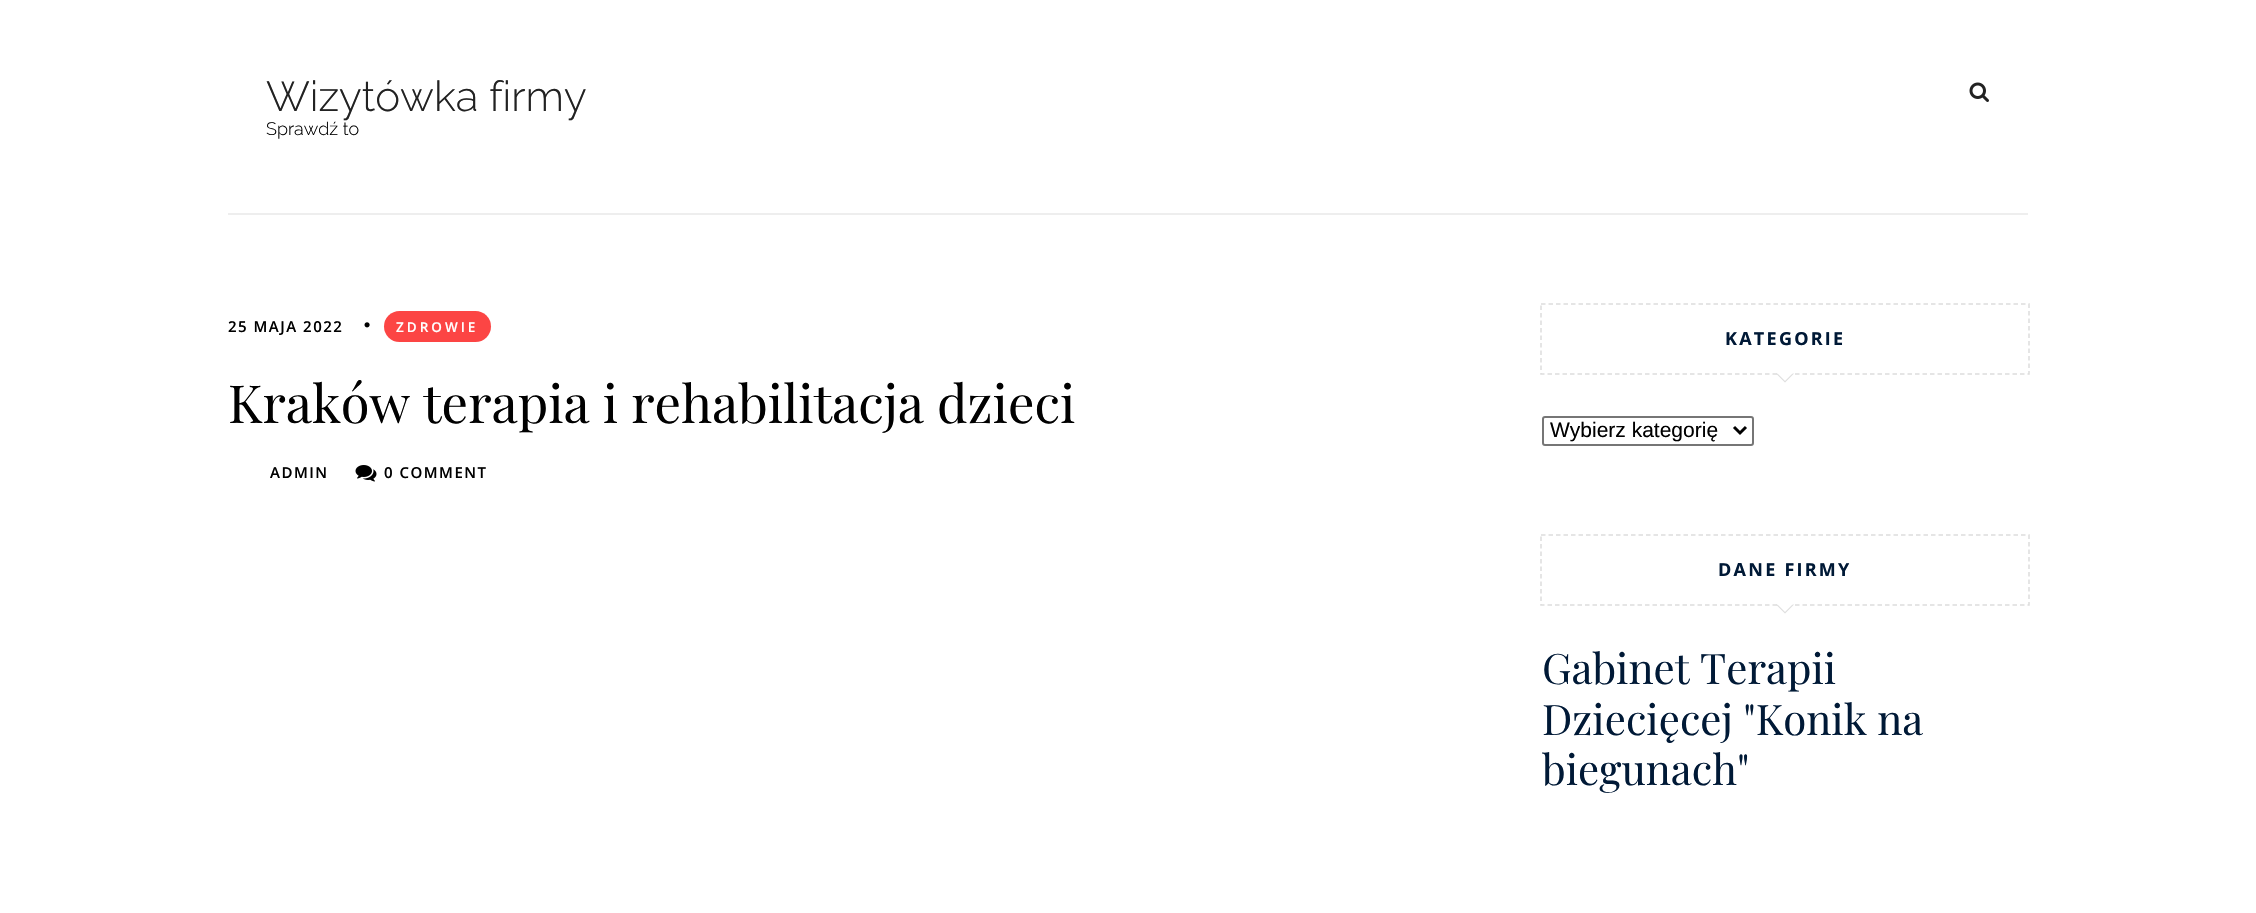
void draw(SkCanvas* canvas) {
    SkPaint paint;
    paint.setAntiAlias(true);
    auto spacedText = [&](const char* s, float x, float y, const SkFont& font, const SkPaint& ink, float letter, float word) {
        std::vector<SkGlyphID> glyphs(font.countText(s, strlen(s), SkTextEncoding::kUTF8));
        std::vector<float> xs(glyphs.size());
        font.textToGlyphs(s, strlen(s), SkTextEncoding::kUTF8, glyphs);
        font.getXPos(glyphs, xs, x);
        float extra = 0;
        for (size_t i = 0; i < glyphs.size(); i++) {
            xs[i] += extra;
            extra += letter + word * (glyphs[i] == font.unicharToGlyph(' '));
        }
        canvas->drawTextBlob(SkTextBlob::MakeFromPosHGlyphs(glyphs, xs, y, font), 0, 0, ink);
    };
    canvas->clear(0xFFFFFFFF);
    SkFont font1(fontMgr->matchFamilyStyle("Raleway", SkFontStyle(300, SkFontStyle::kNormal_Width, SkFontStyle::kUpright_Slant)), 42);
    font1.setSubpixel(true);
    paint.setColor(0xFF222222);
    canvas->drawString("Wizytówka firmy", 266, 111, font1, paint);
    SkFont font2(fontMgr->matchFamilyStyle("Raleway", SkFontStyle(300, SkFontStyle::kNormal_Width, SkFontStyle::kUpright_Slant)), 18);
    font2.setSubpixel(true);
    paint.setColor(0xFF000000);
    canvas->drawString("Sprawdź to", 266, 135, font2, paint);
    canvas->drawImageRect(SkImages::DeferredFromEncodedData(SkData::MakeFromFileName("img1.png")), SkRect::MakeXYWH(1969, 82, 20, 20), SkSamplingOptions());
    paint.setColor(0xFFEEEEEE);
    canvas->drawRect(SkRect::MakeXYWH(228, 213, 1800, 2), paint);
    SkFont font3(fontMgr->matchFamilyStyle("Open Sans", SkFontStyle(600, SkFontStyle::kNormal_Width, SkFontStyle::kUpright_Slant)), 15);
    font3.setSubpixel(true);
    paint.setColor(0xFF000000);
    spacedText("25 MAJA 2022", 228, 332, font3, paint, 1.5f, 0);
    canvas->drawImageRect(SkImages::DeferredFromEncodedData(SkData::MakeFromFileName("img2.png")), SkRect::MakeXYWH(364, 322, 6, 6), SkSamplingOptions());
    paint.setColor(0xFFFC4544);
    canvas->drawRoundRect(SkRect::MakeXYWH(384, 311, 107, 31), 15.5f, 15.5f, paint);
    SkFont font4(fontMgr->matchFamilyStyle("Open Sans", SkFontStyle(600, SkFontStyle::kNormal_Width, SkFontStyle::kUpright_Slant)), 13.5f);
    font4.setSubpixel(true);
    paint.setColor(0xFFFFFFFF);
    spacedText("ZDROWIE", 396, 332, font4, paint, 3, 0);
    SkFont font5(fontMgr->matchFamilyStyle("Playfair Display", SkFontStyle::Normal()), 52.5f);
    font5.setSubpixel(true);
    paint.setColor(0xFF000000);
    canvas->drawString("Kraków terapia i rehabilitacja dzieci", 228, 423, font5, paint);
    spacedText("ADMIN", 270, 478, font3, paint, 1.5f, 0);
    canvas->drawImageRect(SkImages::DeferredFromEncodedData(SkData::MakeFromFileName("img3.png")), SkRect::MakeXYWH(355, 465, 22, 17), SkSamplingOptions());
    spacedText("0 COMMENT", 384, 478, font3, paint, 1.5f, 0);
    SkFont font6(fontMgr->matchFamilyStyle("Open Sans", SkFontStyle::Bold()), 18);
    font6.setSubpixel(true);
    paint.setColor(0xFF001936);
    spacedText("KATEGORIE", 1725, 345, font6, paint, 2.25f, 0);
    paint.setStyle(SkPaint::kStroke_Style);
    paint.setStrokeWidth(1.5f);
    paint.setColor(0xFFDDDDDD);
    paint.setPathEffect(SkDashPathEffect::Make({{4.5f, 3}}, 0));
    canvas->drawPath(SkPathBuilder().moveTo(1541, 304).lineTo(2029, 304).lineTo(2029, 374).lineTo(1541, 374).close().detach(), paint);
    paint.setPathEffect(nullptr);
    paint.setStyle(SkPaint::kFill_Style);
    canvas->drawPath(SkPathBuilder().moveTo(1776, 373.5f).lineTo(1794, 373.5f).lineTo(1785, 382.5f).close().detach(), paint);
    paint.setColor(0xFFFFFFFF);
    canvas->drawPath(SkPathBuilder().moveTo(1776, 372).lineTo(1794, 372).lineTo(1785, 381).close().detach(), paint);
    paint.setStyle(SkPaint::kStroke_Style);
    paint.setStrokeWidth(2);
    paint.setColor(0xFF767676);
    canvas->drawRoundRect(SkRect::MakeXYWH(1543, 417, 210, 28), 2, 2, paint);
    paint.setStrokeWidth(3);
    paint.setColor(0xFF000000);
    canvas->drawPath(SkPathBuilder().moveTo(1734, 427).lineTo(1740, 433).lineTo(1746, 427).detach(), paint);
    SkFont font7(fontMgr->matchFamilyStyle("Liberation Sans", SkFontStyle::Normal()), 21);
    font7.setSubpixel(true);
    paint.setStyle(SkPaint::kFill_Style);
    canvas->drawString("Wybierz kategorię", 1550, 437, font7, paint);
    paint.setColor(0xFF001936);
    spacedText("DANE FIRMY", 1718, 576, font6, paint, 2.25f, 0);
    paint.setStyle(SkPaint::kStroke_Style);
    paint.setStrokeWidth(1.5f);
    paint.setColor(0xFFDDDDDD);
    paint.setPathEffect(SkDashPathEffect::Make({{4.5f, 3}}, 0));
    canvas->drawPath(SkPathBuilder().moveTo(1541, 535).lineTo(2029, 535).lineTo(2029, 605).lineTo(1541, 605).close().detach(), paint);
    paint.setPathEffect(nullptr);
    paint.setStyle(SkPaint::kFill_Style);
    canvas->drawPath(SkPathBuilder().moveTo(1776, 604.5f).lineTo(1794, 604.5f).lineTo(1785, 613.5f).close().detach(), paint);
    paint.setColor(0xFFFFFFFF);
    canvas->drawPath(SkPathBuilder().moveTo(1776, 603).lineTo(1794, 603).lineTo(1785, 612).close().detach(), paint);
    SkFont font8(fontMgr->matchFamilyStyle("Playfair Display", SkFontStyle::Normal()), 42);
    font8.setSubpixel(true);
    paint.setColor(0xFF001936);
    canvas->drawString("Gabinet Terapii", 1542, 684, font8, paint);
    canvas->drawString("Dziecięcej \"Konik na", 1542, 735, font8, paint);
    canvas->drawString("biegunach\"", 1542, 785, font8, paint);
}
